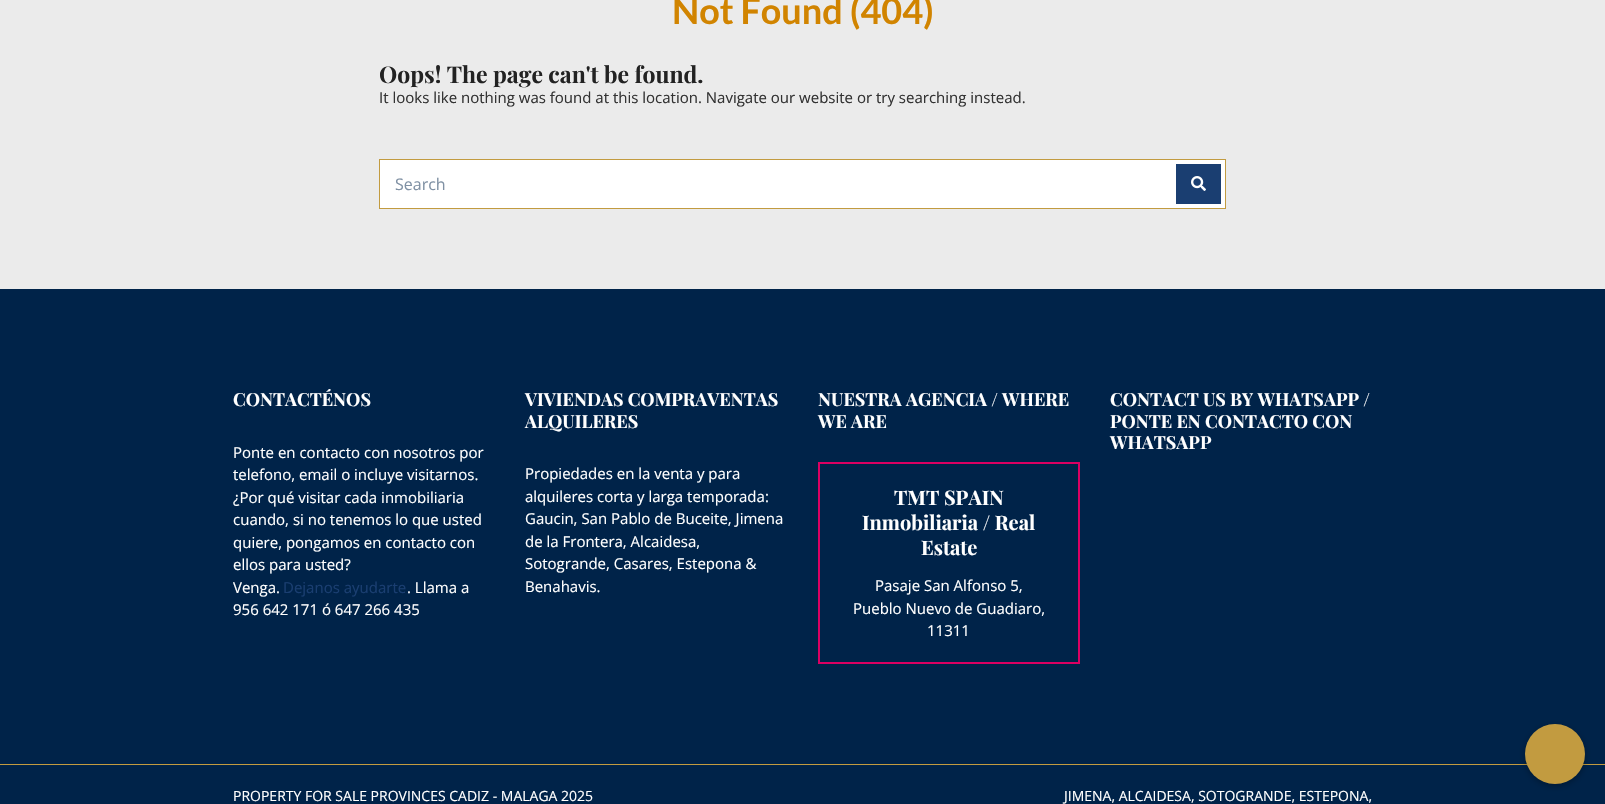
void draw(SkCanvas* canvas) {
    SkPaint paint;
    paint.setAntiAlias(true);
    canvas->clear(0xFFEBEBEB);
    SkFont font1(fontMgr->matchFamilyStyle("Lato", SkFontStyle::Bold()), 36);
    font1.setSubpixel(true);
    paint.setColor(0xFFD18400);
    canvas->drawString("Not Found (404)", 672, 24, font1, paint);
    SkFont font2(fontMgr->matchFamilyStyle("Playfair Display", SkFontStyle::Bold()), 23);
    font2.setSubpixel(true);
    paint.setColor(0xFF222222);
    canvas->drawString("Oops! The page can't be found.", 379, 83, font2, paint);
    SkFont font3(fontMgr->matchFamilyStyle("Open Sans", SkFontStyle::Normal()), 15);
    font3.setSubpixel(true);
    paint.setColor(0xFF333333);
    canvas->drawString("It looks like nothing was found at this location. Navigate our website or try searching instead.", 379, 103, font3, paint);
    paint.setColor(0xFFFFFFFF);
    canvas->drawRect(SkRect::MakeXYWH(379.5f, 159.5f, 846, 49), paint);
    paint.setStyle(SkPaint::kStroke_Style);
    paint.setStrokeWidth(1);
    paint.setColor(0xFFC29B40);
    canvas->drawRect(SkRect::MakeXYWH(379.5f, 159.5f, 846, 49), paint);
    SkFont font4(fontMgr->matchFamilyStyle("Open Sans", SkFontStyle::Normal()), 16);
    font4.setSubpixel(true);
    paint.setStyle(SkPaint::kFill_Style);
    paint.setColor(0xFF8091A4);
    canvas->drawString("Search", 395, 190, font4, paint);
    paint.setColor(0xFF1A3E71);
    canvas->drawRect(SkRect::MakeXYWH(1176, 164, 45, 40), paint);
    canvas->drawImageRect(SkImages::DeferredFromEncodedData(SkData::MakeFromFileName("img1.png")), SkRect::MakeXYWH(1191, 176, 15, 15), SkSamplingOptions());
    paint.setColor(0xFF002349);
    canvas->drawRect(SkRect::MakeXYWH(0, 289, 1605, 515), paint);
    SkFont font5(fontMgr->matchFamilyStyle("Playfair Display", SkFontStyle::Bold()), 18);
    font5.setSubpixel(true);
    paint.setColor(0xFFFFFFFF);
    canvas->drawString("CONTACTÉNOS", 233, 406, font5, paint);
    canvas->drawString("Ponte en contacto con nosotros por", 233, 458, font3, paint);
    canvas->drawString("telefono, email o incluye visitarnos.", 233, 480, font3, paint);
    canvas->drawString("¿Por qué visitar cada inmobiliaria", 233, 503, font3, paint);
    canvas->drawString("cuando, si no tenemos lo que usted", 233, 525, font3, paint);
    canvas->drawString("quiere, pongamos en contacto con", 233, 548, font3, paint);
    canvas->drawString("ellos para usted?", 233, 570, font3, paint);
    canvas->drawString("Venga.", 233, 593, font3, paint);
    paint.setColor(0xFF1A3E71);
    canvas->drawString("Dejanos ayudarte", 283, 593, font3, paint);
    paint.setColor(0xFFFFFFFF);
    canvas->drawString(". Llama a", 407, 593, font3, paint);
    canvas->drawString("956 642 171 ó 647 266 435", 233, 615, font3, paint);
    canvas->drawString("VIVIENDAS COMPRAVENTAS", 525, 406, font5, paint);
    canvas->drawString("ALQUILERES", 525, 428, font5, paint);
    canvas->drawString("Propiedades en la venta y para", 525, 479, font3, paint);
    canvas->drawString("alquileres corta y larga temporada:", 525, 502, font3, paint);
    canvas->drawString("Gaucin, San Pablo de Buceite, Jimena", 525, 524, font3, paint);
    canvas->drawString("de la Frontera, Alcaidesa,", 525, 547, font3, paint);
    canvas->drawString("Sotogrande, Casares, Estepona &", 525, 569, font3, paint);
    canvas->drawString("Benahavis.", 525, 592, font3, paint);
    canvas->drawString("NUESTRA AGENCIA / WHERE", 818, 406, font5, paint);
    canvas->drawString("WE ARE", 818, 428, font5, paint);
    paint.setStyle(SkPaint::kStroke_Style);
    paint.setStrokeWidth(2);
    paint.setColor(0xFFDB0062);
    canvas->drawRect(SkRect::MakeXYWH(819, 463, 260, 200), paint);
    SkFont font6(fontMgr->matchFamilyStyle("Playfair Display", SkFontStyle::Bold()), 20);
    font6.setSubpixel(true);
    paint.setStyle(SkPaint::kFill_Style);
    paint.setColor(0xFFFFFFFF);
    canvas->drawString("TMT SPAIN", 894, 505, font6, paint);
    canvas->drawString("Inmobiliaria / Real", 862, 530, font6, paint);
    canvas->drawString("Estate", 921, 555, font6, paint);
    canvas->drawString("Pasaje San Alfonso 5,", 875, 591, font3, paint);
    canvas->drawString("Pueblo Nuevo de Guadiaro,", 853, 614, font3, paint);
    canvas->drawString("11311", 927, 636, font3, paint);
    canvas->drawString("CONTACT US BY WHATSAPP /", 1110, 406, font5, paint);
    canvas->drawString("PONTE EN CONTACTO CON", 1110, 428, font5, paint);
    canvas->drawString("WHATSAPP", 1110, 449, font5, paint);
    paint.setColor(0xFFC29B40);
    canvas->drawRect(SkRect::MakeXYWH(0, 764, 1605, 1), paint);
    paint.setColor(0x4D000000);
    paint.setMaskFilter(SkMaskFilter::MakeBlur(kNormal_SkBlurStyle, 3));
    canvas->drawRoundRect(SkRect::MakeXYWH(1525, 726, 60, 60), 30, 30, paint);
    paint.setMaskFilter(nullptr);
    paint.setColor(0xFFC29B40);
    canvas->drawCircle(1555, 754, 30, paint);
    SkFont font7(fontMgr->matchFamilyStyle("Open Sans", SkFontStyle::Normal()), 14);
    font7.setSubpixel(true);
    paint.setColor(0xFFFFFFFF);
    canvas->drawString("PROPERTY FOR SALE PROVINCES CADIZ - MALAGA 2025", 233, 801, font7, paint);
    canvas->drawString("JIMENA, ALCAIDESA, SOTOGRANDE, ESTEPONA,", 1064, 801, font7, paint);
}
